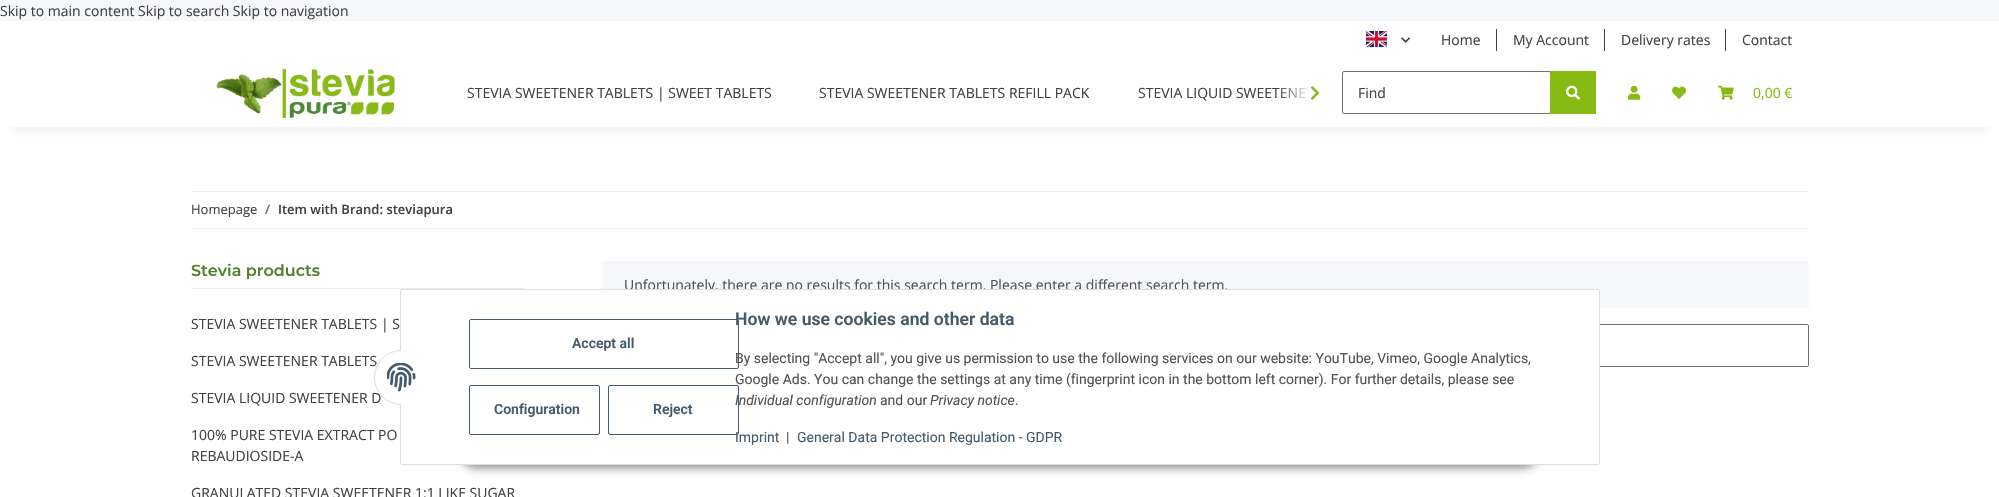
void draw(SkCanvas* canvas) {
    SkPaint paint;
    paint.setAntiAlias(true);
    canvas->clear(0xFFF5F7FA);
    SkFont font1(fontMgr->matchFamilyStyle("Open Sans", SkFontStyle::Normal()), 14);
    font1.setSubpixel(true);
    paint.setColor(0xFF414141);
    canvas->drawString("Skip to main content Skip to search Skip to navigation", 0, 16, font1, paint);
    paint.setColor(0xFFFFFFFF);
    canvas->drawRect(SkRect::MakeXYWH(0, 127, 1999, 370), paint);
    paint.setColor(0x0F000000);
    paint.setMaskFilter(SkMaskFilter::MakeBlur(kNormal_SkBlurStyle, 4.5f));
    canvas->drawRect(SkRect::MakeXYWH(12, 87, 1975, 44), paint);
    paint.setMaskFilter(nullptr);
    paint.setColor(0xFFFFFFFF);
    canvas->drawRect(SkRect::MakeXYWH(0, 21, 1999, 106), paint);
    canvas->drawImageRect(SkImages::DeferredFromEncodedData(SkData::MakeFromFileName("img1.png")), SkRect::MakeXYWH(1365, 31, 22, 17), SkSamplingOptions());
    canvas->drawImageRect(SkImages::DeferredFromEncodedData(SkData::MakeFromFileName("img2.png")), SkRect::MakeXYWH(1401, 37, 9, 6), SkSamplingOptions());
    paint.setColor(0xFF414141);
    canvas->drawString("Home", 1441, 45, font1, paint);
    canvas->drawRect(SkRect::MakeXYWH(1496, 29, 1, 22), paint);
    canvas->drawString("My Account", 1513, 45, font1, paint);
    canvas->drawRect(SkRect::MakeXYWH(1604, 29, 1, 22), paint);
    canvas->drawString("Delivery rates", 1621, 45, font1, paint);
    canvas->drawRect(SkRect::MakeXYWH(1725, 29, 1, 22), paint);
    canvas->drawString("Contact", 1742, 45, font1, paint);
    canvas->drawImageRect(SkImages::DeferredFromEncodedData(SkData::MakeFromFileName("img3.png")), SkRect::MakeXYWH(216, 68, 179, 50), SkSamplingOptions());
    canvas->drawString("STEVIA LIQUID SWEETENE", 1138, 98, font1, paint);
    {
        const SkColor colors[] = {0x03FFFFFF, 0xFFFFFFFF};
        const float stops[] = {0, 0.7f};
        const SkPoint ends[] = {{1278, 93}, {1326, 93}};
        paint.setShader(SkGradientShader::MakeLinear(ends, colors, stops, 2, SkTileMode::kClamp));
        paint.setAlpha(255);
    }
    canvas->drawRect(SkRect::MakeXYWH(1278, 88, 27, 10), paint);
    canvas->drawImageRect(SkImages::DeferredFromEncodedData(SkData::MakeFromFileName("img4.png")), SkRect::MakeXYWH(1310, 86, 10, 14), SkSamplingOptions());
    paint.setShader(nullptr);
    paint.setColor(0xFF414141);
    canvas->drawString("STEVIA SWEETENER TABLETS | SWEET TABLETS", 467, 98, font1, paint);
    canvas->drawString("STEVIA SWEETENER TABLETS REFILL PACK", 819, 98, font1, paint);
    paint.setStyle(SkPaint::kStroke_Style);
    paint.setStrokeWidth(1);
    paint.setColor(0xFF707070);
    canvas->drawRoundRect(SkRect::MakeXYWH(1342.5f, 71.5f, 208, 42), 1.5f, 1.5f, paint);
    paint.setStyle(SkPaint::kFill_Style);
    paint.setColor(0xFF414141);
    canvas->drawString("Find", 1358, 98, font1, paint);
    paint.setColor(0xFF88BA14);
    canvas->drawRect(SkRect::MakeXYWH(1550, 71, 46, 43), paint);
    canvas->drawImageRect(SkImages::DeferredFromEncodedData(SkData::MakeFromFileName("img5.png")), SkRect::MakeXYWH(1566, 85, 14, 15), SkSamplingOptions());
    canvas->drawImageRect(SkImages::DeferredFromEncodedData(SkData::MakeFromFileName("img6.png")), SkRect::MakeXYWH(1628, 85, 13, 15), SkSamplingOptions());
    canvas->drawImageRect(SkImages::DeferredFromEncodedData(SkData::MakeFromFileName("img7.png")), SkRect::MakeXYWH(1672, 86, 14, 13), SkSamplingOptions());
    canvas->drawImageRect(SkImages::DeferredFromEncodedData(SkData::MakeFromFileName("img8.png")), SkRect::MakeXYWH(1718, 85, 16, 15), SkSamplingOptions());
    canvas->drawString("0,00 €", 1753, 98, font1, paint);
    paint.setColor(0xFFEBEBEB);
    canvas->drawRect(SkRect::MakeXYWH(191, 191, 1618, 1), paint);
    canvas->drawRect(SkRect::MakeXYWH(191, 228, 1618, 1), paint);
    SkFont font2(fontMgr->matchFamilyStyle("Open Sans", SkFontStyle::Normal()), 13);
    font2.setSubpixel(true);
    paint.setColor(0xFF414141);
    canvas->drawString("Homepage", 191, 214, font2, paint);
    SkFont font3(fontMgr->matchFamilyStyle("Open Sans", SkFontStyle(600, SkFontStyle::kNormal_Width, SkFontStyle::kUpright_Slant)), 13);
    font3.setSubpixel(true);
    paint.setColor(0xFF707070);
    canvas->drawString("/", 265, 214, font3, paint);
    paint.setColor(0xFF414141);
    canvas->drawString("Item with Brand: steviapura", 278, 214, font3, paint);
    paint.setColor(0xFFEBEBEB);
    canvas->drawRect(SkRect::MakeXYWH(191, 288, 332, 1), paint);
    SkFont font4(fontMgr->matchFamilyStyle("Montserrat", SkFontStyle(600, SkFontStyle::kNormal_Width, SkFontStyle::kUpright_Slant)), 16);
    font4.setSubpixel(true);
    paint.setColor(0xFF51812E);
    canvas->drawString("Stevia products", 191, 276, font4, paint);
    paint.setColor(0xFF414141);
    canvas->drawString("STEVIA SWEETENER TABLETS | S", 191, 329, font1, paint);
    canvas->drawString("STEVIA SWEETENER TABLETS", 191, 366, font1, paint);
    canvas->drawString("STEVIA LIQUID SWEETENER D", 191, 403, font1, paint);
    canvas->drawString("100% PURE STEVIA EXTRACT PO", 191, 440, font1, paint);
    canvas->drawString("REBAUDIOSIDE-A", 191, 461, font1, paint);
    canvas->drawString("GRANULATED STEVIA SWEETENER 1:1 LIKE SUGAR", 191, 498, font1, paint);
    paint.setColor(0xFFF5F7FA);
    canvas->drawRoundRect(SkRect::MakeXYWH(603, 261, 1206, 47), 2, 2, paint);
    paint.setColor(0xFF525252);
    canvas->drawString("Unfortunately, there are no results for this search term. Please enter a different search term.", 624, 290, font1, paint);
    paint.setStyle(SkPaint::kStroke_Style);
    paint.setColor(0xFF707070);
    canvas->drawRoundRect(SkRect::MakeXYWH(603.5f, 324.5f, 1205, 42), 1.5f, 1.5f, paint);
    paint.setStyle(SkPaint::kFill_Style);
    paint.setColor(0x73000000);
    paint.setMaskFilter(SkMaskFilter::MakeBlur(kNormal_SkBlurStyle, 5));
    canvas->drawRoundRect(SkRect::MakeXYWH(460, 436, 1079, 32), 16, 16, paint);
    paint.setMaskFilter(nullptr);
    paint.setColor(0xFFFFFFFF);
    canvas->drawRoundRect(SkRect::MakeXYWH(400.5f, 289.5f, 1199, 175), 1.5f, 1.5f, paint);
    paint.setStyle(SkPaint::kStroke_Style);
    paint.setColor(0xFFDDDDDD);
    canvas->drawRoundRect(SkRect::MakeXYWH(400.5f, 289.5f, 1199, 175), 1.5f, 1.5f, paint);
    paint.setStyle(SkPaint::kFill_Style);
    paint.setColor(0xFFFFFFFF);
    canvas->drawCircle(401.5f, 377.5f, 27, paint);
    paint.setStyle(SkPaint::kStroke_Style);
    paint.setColor(0xFFDDDDDD);
    canvas->drawCircle(401.5f, 377.5f, 27, paint);
    paint.setStyle(SkPaint::kFill_Style);
    paint.setColor(0xFFFFFFFF);
    canvas->drawRect(SkRect::MakeXYWH(401, 350, 28, 55), paint);
    canvas->drawImageRect(SkImages::DeferredFromEncodedData(SkData::MakeFromFileName("img9.png")), SkRect::MakeXYWH(387, 363, 29, 29), SkSamplingOptions());
    paint.setStyle(SkPaint::kStroke_Style);
    paint.setColor(0xFF435A6B);
    canvas->drawRoundRect(SkRect::MakeXYWH(469.5f, 319.5f, 269, 49), 1.5f, 1.5f, paint);
    SkFont font5(fontMgr->matchFamilyStyle("Roboto", SkFontStyle(600, SkFontStyle::kNormal_Width, SkFontStyle::kUpright_Slant)), 14);
    font5.setSubpixel(true);
    paint.setStyle(SkPaint::kFill_Style);
    canvas->drawString("Accept all", 572, 348, font5, paint);
    paint.setStyle(SkPaint::kStroke_Style);
    canvas->drawRoundRect(SkRect::MakeXYWH(469.5f, 385.5f, 130, 49), 1.5f, 1.5f, paint);
    paint.setStyle(SkPaint::kFill_Style);
    canvas->drawString("Configuration", 494, 414, font5, paint);
    paint.setStyle(SkPaint::kStroke_Style);
    canvas->drawRoundRect(SkRect::MakeXYWH(608.5f, 385.5f, 130, 49), 1.5f, 1.5f, paint);
    paint.setStyle(SkPaint::kFill_Style);
    canvas->drawString("Reject", 653, 414, font5, paint);
    SkFont font6(fontMgr->matchFamilyStyle("Roboto", SkFontStyle(600, SkFontStyle::kNormal_Width, SkFontStyle::kUpright_Slant)), 17.6f);
    font6.setSubpixel(true);
    canvas->drawString("How we use cookies and other data", 735, 325, font6, paint);
    SkFont font7(fontMgr->matchFamilyStyle("Roboto", SkFontStyle::Normal()), 14);
    font7.setSubpixel(true);
    paint.setColor(0xFF525252);
    canvas->drawString("By selecting \"Accept all\", you give us permission to use the following services on our website: YouTube, Vimeo, Google Analytics,", 735, 363, font7, paint);
    canvas->drawString("Google Ads. You can change the settings at any time (fingerprint icon in the bottom left corner). For further details, please see", 735, 384, font7, paint);
    SkFont font8(fontMgr->matchFamilyStyle("Roboto", SkFontStyle::Italic()), 14);
    font8.setSubpixel(true);
    canvas->drawString("Individual configuration", 735, 405, font8, paint);
    canvas->drawString("and our", 880, 405, font7, paint);
    canvas->drawString("Privacy notice", 930, 405, font8, paint);
    canvas->drawString(".", 1015, 405, font7, paint);
    paint.setColor(0xFF435A6B);
    canvas->drawString("Imprint", 735, 442, font7, paint);
    paint.setColor(0xFF525252);
    canvas->drawString("|", 786, 442, font7, paint);
    paint.setColor(0xFF435A6B);
    canvas->drawString("General Data Protection Regulation - GDPR", 797, 442, font7, paint);
}
